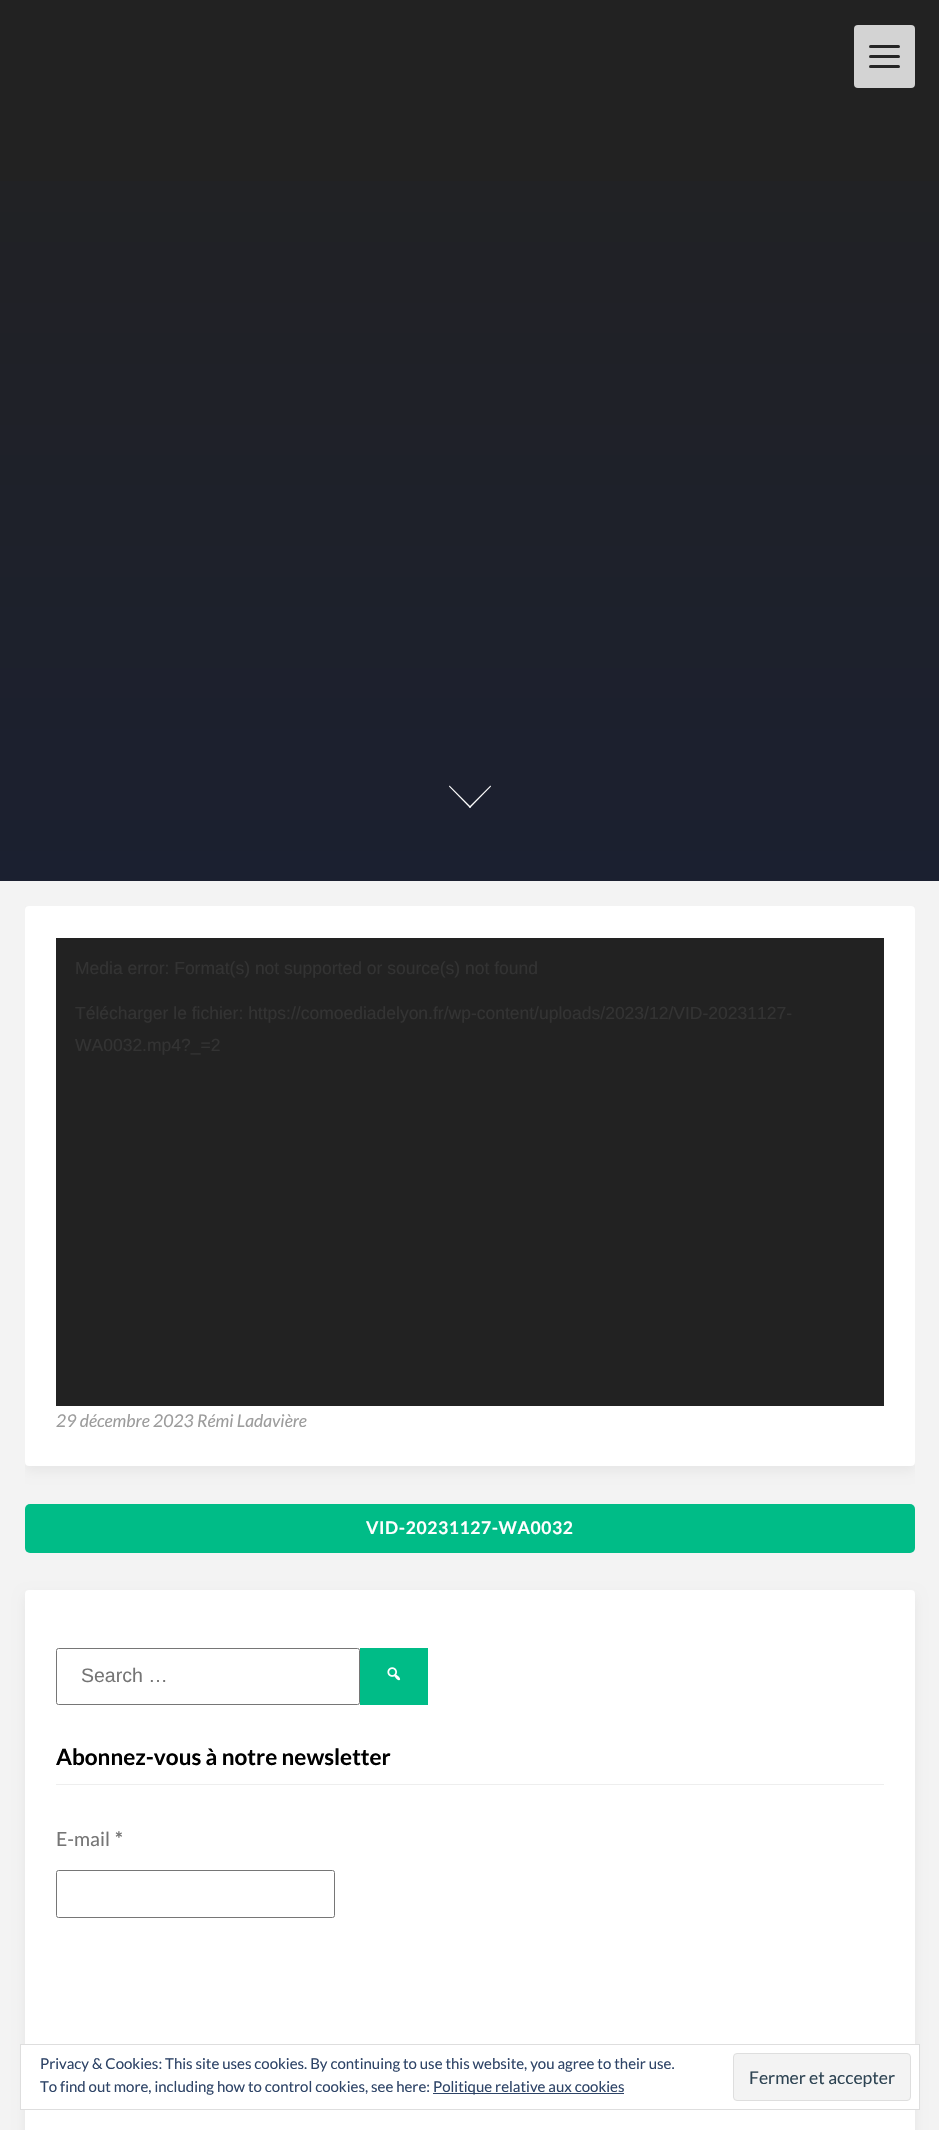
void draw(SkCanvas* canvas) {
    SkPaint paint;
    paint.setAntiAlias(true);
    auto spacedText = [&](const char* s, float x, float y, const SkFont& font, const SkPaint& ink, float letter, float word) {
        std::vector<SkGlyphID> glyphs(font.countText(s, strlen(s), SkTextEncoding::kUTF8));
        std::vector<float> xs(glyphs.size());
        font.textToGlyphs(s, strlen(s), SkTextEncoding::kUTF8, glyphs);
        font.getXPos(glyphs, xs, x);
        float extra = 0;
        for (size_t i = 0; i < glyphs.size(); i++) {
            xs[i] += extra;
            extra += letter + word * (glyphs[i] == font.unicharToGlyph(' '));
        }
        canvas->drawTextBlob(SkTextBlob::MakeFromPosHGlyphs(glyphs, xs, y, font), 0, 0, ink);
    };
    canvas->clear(0xFF222222);
    paint.setColor(0xFFD3D3D3);
    canvas->drawRoundRect(SkRect::MakeXYWH(854, 25, 61, 63), 4, 4, paint);
    paint.setColor(0xFF252525);
    canvas->drawRoundRect(SkRect::MakeXYWH(869, 55, 31, 3), 1.5f, 1.5f, paint);
    canvas->drawRoundRect(SkRect::MakeXYWH(869, 45, 31, 3), 1.5f, 1.5f, paint);
    canvas->drawRoundRect(SkRect::MakeXYWH(869, 65, 31, 3), 1.5f, 1.5f, paint);
    {
        const SkColor colors[] = {0xFF222222, 0xFF1B2030};
        const float stops[] = {0, 1};
        const SkPoint ends[] = {{470, 29}, {470, 881}};
        paint.setShader(SkGradientShader::MakeLinear(ends, colors, stops, 2, SkTileMode::kClamp));
        paint.setAlpha(255);
    }
    canvas->drawRect(SkRect::MakeXYWH(0, 181, 939, 700), paint);
    paint.setShader(nullptr);
    paint.setColor(0xFFFFFFFF);
    canvas->drawPath(SkPathBuilder().moveTo(469, 807).lineTo(490.5f, 785.5f).lineTo(491, 786.5f).lineTo(470, 808).close().detach(), paint);
    canvas->drawPath(SkPathBuilder().moveTo(449, 786.5f).lineTo(449.5f, 785.5f).lineTo(471, 807).lineTo(470, 808).close().detach(), paint);
    paint.setColor(0xFFF3F3F3);
    canvas->drawRect(SkRect::MakeXYWH(0, 881, 939, 1249), paint);
    canvas->save();
    canvas->clipRect(SkRect::MakeXYWH(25, 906, 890, 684));
    paint.setColor(0x0D000000);
    paint.setMaskFilter(SkMaskFilter::MakeBlur(kNormal_SkBlurStyle, 6));
    canvas->drawRoundRect(SkRect::MakeXYWH(25, 911, 890, 560), 4, 4, paint);
    paint.setMaskFilter(nullptr);
    canvas->restore();
    paint.setColor(0xFFFFFFFF);
    canvas->drawRoundRect(SkRect::MakeXYWH(25, 906, 890, 560), 4, 4, paint);
    paint.setColor(0xFF222222);
    canvas->drawRect(SkRect::MakeXYWH(56, 938, 828, 468), paint);
    SkFont font1(fontMgr->matchFamilyStyle("Liberation Sans", SkFontStyle::Normal()), 17.5f);
    font1.setSubpixel(true);
    paint.setColor(0xFF333333);
    canvas->drawString("Media error: Format(s) not supported or source(s) not found", 75, 974, font1, paint);
    canvas->drawString("Télécharger le fichier: https://comoediadelyon.fr/wp-content/uploads/2023/12/VID-20231127-", 75, 1019, font1, paint);
    canvas->drawString("WA0032.mp4?_=2", 75, 1051, font1, paint);
    SkFont font2(fontMgr->matchFamilyStyle("Lato", SkFontStyle::Italic()), 17.5f);
    font2.setSubpixel(true);
    paint.setColor(0xFF9C9C9C);
    canvas->drawString("29 décembre 2023 Rémi Ladavière", 56, 1427, font2, paint);
    paint.setColor(0xFF00BC87);
    canvas->drawRoundRect(SkRect::MakeXYWH(25, 1504, 890, 49), 5, 5, paint);
    SkFont font3(fontMgr->matchFamilyStyle("Lato", SkFontStyle::Bold()), 17.5f);
    font3.setSubpixel(true);
    paint.setColor(0xFFFFFFFF);
    spacedText("VID-20231127-WA0032", 366, 1534, font3, paint, 0.6f, 0);
    paint.setColor(0x0D000000);
    paint.setMaskFilter(SkMaskFilter::MakeBlur(kNormal_SkBlurStyle, 6));
    canvas->drawRoundRect(SkRect::MakeXYWH(25, 1595, 890, 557), 4, 4, paint);
    paint.setMaskFilter(nullptr);
    paint.setColor(0xFFFFFFFF);
    canvas->drawRoundRect(SkRect::MakeXYWH(25, 1590, 890, 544), 4, 4, paint);
    paint.setStyle(SkPaint::kStroke_Style);
    paint.setStrokeWidth(1);
    paint.setColor(0xFF767676);
    canvas->drawRoundRect(SkRect::MakeXYWH(56.5f, 1648.5f, 303, 56), 2, 2, paint);
    SkFont font4(fontMgr->matchFamilyStyle("Liberation Sans", SkFontStyle::Normal()), 19.5f);
    font4.setSubpixel(true);
    paint.setStyle(SkPaint::kFill_Style);
    paint.setColor(0xFF757575);
    canvas->drawString("Search …", 81, 1682, font4, paint);
    paint.setColor(0xFF00BC87);
    canvas->drawRect(SkRect::MakeXYWH(360, 1648, 68, 57), paint);
    canvas->drawImageRect(SkImages::DeferredFromEncodedData(SkData::MakeFromFileName("img1.png")), SkRect::MakeXYWH(387, 1667, 14, 14), SkSamplingOptions());
    paint.setColor(0xFFEEEEEE);
    canvas->drawRect(SkRect::MakeXYWH(56, 1784, 828, 1), paint);
    SkFont font5(fontMgr->matchFamilyStyle("Lato", SkFontStyle::Bold()), 22.5f);
    font5.setSubpixel(true);
    paint.setColor(0xFF000000);
    canvas->drawString("Abonnez-vous à notre newsletter", 56, 1765, font5, paint);
    SkFont font6(fontMgr->matchFamilyStyle("Lato", SkFontStyle::Normal()), 19.5f);
    font6.setSubpixel(true);
    paint.setColor(0xFF757575);
    canvas->drawString("E-mail", 56, 1846, font6, paint);
    SkFont font7(fontMgr->matchFamilyStyle("Lato", SkFontStyle::Bold()), 19.5f);
    font7.setSubpixel(true);
    canvas->drawString("*", 115, 1846, font7, paint);
    paint.setStyle(SkPaint::kStroke_Style);
    paint.setColor(0xFF767676);
    canvas->drawRoundRect(SkRect::MakeXYWH(56.5f, 1870.5f, 278, 47), 2, 2, paint);
    paint.setStyle(SkPaint::kFill_Style);
    paint.setColor(0xFFFFFFFF);
    canvas->drawRect(SkRect::MakeXYWH(20.5f, 2044.5f, 899, 65), paint);
    paint.setStyle(SkPaint::kStroke_Style);
    paint.setColor(0xFFDEDEDE);
    canvas->drawRect(SkRect::MakeXYWH(20.5f, 2044.5f, 899, 65), paint);
    SkFont font8(fontMgr->matchFamilyStyle("Lato", SkFontStyle::Normal()), 15);
    font8.setSubpixel(true);
    paint.setStyle(SkPaint::kFill_Style);
    paint.setColor(0xFF2E4467);
    canvas->drawString("Privacy & Cookies: This site uses cookies. By continuing to use this website, you agree to their use.", 40, 2069, font8, paint);
    canvas->drawString("To find out more, including how to control cookies, see here:", 40, 2092, font8, paint);
    canvas->drawRect(SkRect::MakeXYWH(433, 2093, 191, 1), paint);
    canvas->drawString("Politique relative aux cookies", 433, 2092, font8, paint);
    paint.setColor(0xFFF3F3F3);
    canvas->drawRoundRect(SkRect::MakeXYWH(733.5f, 2053.5f, 177, 47), 3.5f, 3.5f, paint);
    paint.setStyle(SkPaint::kStroke_Style);
    paint.setColor(0xFFDEDEDE);
    canvas->drawRoundRect(SkRect::MakeXYWH(733.5f, 2053.5f, 177, 47), 3.5f, 3.5f, paint);
    SkFont font9(fontMgr->matchFamilyStyle("Lato", SkFontStyle::Normal()), 17.5f);
    font9.setSubpixel(true);
    paint.setStyle(SkPaint::kFill_Style);
    paint.setColor(0xFF2E4453);
    canvas->drawString("Fermer et accepter", 749, 2084, font9, paint);
}
